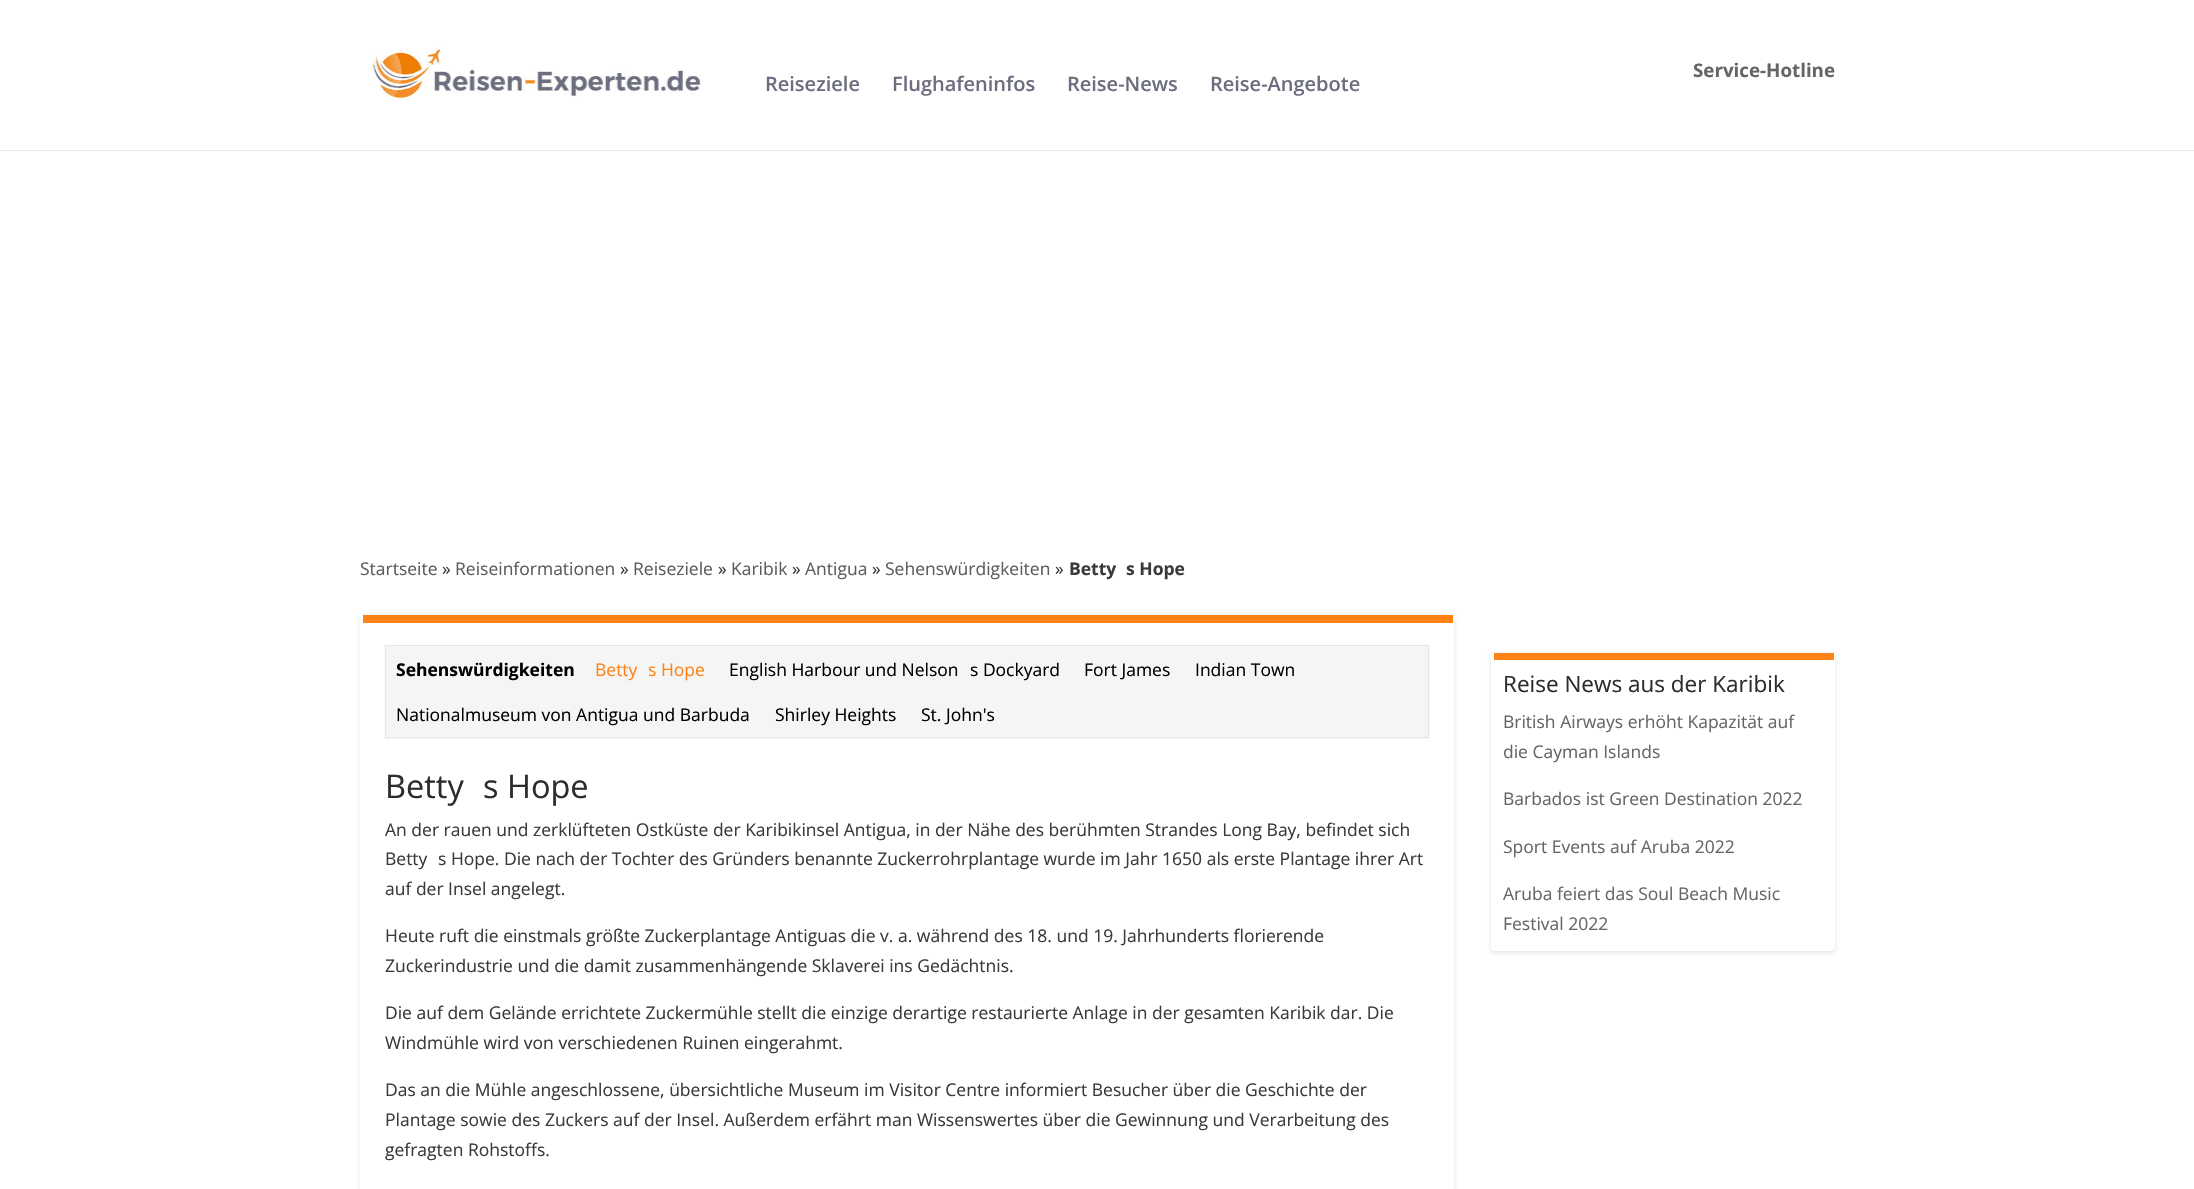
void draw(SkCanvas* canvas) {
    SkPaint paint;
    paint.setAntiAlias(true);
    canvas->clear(0xFFFFFFFF);
    paint.setColor(0xFFE6E6E6);
    canvas->drawRect(SkRect::MakeXYWH(0, 150, 2194, 1), paint);
    canvas->drawImageRect(SkImages::DeferredFromEncodedData(SkData::MakeFromFileName("img1.png")), SkRect::MakeXYWH(371, 45, 330, 56), SkSamplingOptions());
    SkFont font1(fontMgr->matchFamilyStyle("Open Sans", SkFontStyle::Bold()), 18.75f);
    font1.setSubpixel(true);
    paint.setColor(0xFF666666);
    canvas->drawString("Service-Hotline", 1693, 77, font1, paint);
    SkFont font2(fontMgr->matchFamilyStyle("Open Sans", SkFontStyle(600, SkFontStyle::kNormal_Width, SkFontStyle::kUpright_Slant)), 20);
    font2.setSubpixel(true);
    paint.setColor(0xFF6C6E7F);
    canvas->drawString("Reiseziele", 765, 91, font2, paint);
    canvas->drawString("Flughafeninfos", 892, 91, font2, paint);
    canvas->drawString("Reise-News", 1067, 91, font2, paint);
    canvas->drawString("Reise-Angebote", 1210, 91, font2, paint);
    SkFont font3(fontMgr->matchFamilyStyle("Open Sans", SkFontStyle::Normal()), 17.5f);
    font3.setSubpixel(true);
    paint.setColor(0xFF5C5C5C);
    canvas->drawString("Startseite", 360, 575, font3, paint);
    paint.setColor(0xFF3A3A3A);
    canvas->drawString("»", 442, 575, font3, paint);
    paint.setColor(0xFF5C5C5C);
    canvas->drawString("Reiseinformationen", 455, 575, font3, paint);
    paint.setColor(0xFF3A3A3A);
    canvas->drawString("»", 620, 575, font3, paint);
    paint.setColor(0xFF5C5C5C);
    canvas->drawString("Reiseziele", 633, 575, font3, paint);
    paint.setColor(0xFF3A3A3A);
    canvas->drawString("»", 718, 575, font3, paint);
    paint.setColor(0xFF5C5C5C);
    canvas->drawString("Karibik", 731, 575, font3, paint);
    paint.setColor(0xFF3A3A3A);
    canvas->drawString("»", 792, 575, font3, paint);
    paint.setColor(0xFF5C5C5C);
    canvas->drawString("Antigua", 805, 575, font3, paint);
    paint.setColor(0xFF3A3A3A);
    canvas->drawString("»", 872, 575, font3, paint);
    paint.setColor(0xFF5C5C5C);
    canvas->drawString("Sehenswürdigkeiten", 885, 575, font3, paint);
    paint.setColor(0xFF3A3A3A);
    canvas->drawString("»", 1055, 575, font3, paint);
    SkFont font4(fontMgr->matchFamilyStyle("Open Sans", SkFontStyle::Bold()), 17.5f);
    font4.setSubpixel(true);
    canvas->drawString("Betty", 1069, 575, font4, paint);
    canvas->drawString("s Hope", 1126, 575, font4, paint);
    paint.setColor(0x1A000000);
    paint.setMaskFilter(SkMaskFilter::MakeBlur(kNormal_SkBlurStyle, 2));
    canvas->drawRoundRect(SkRect::MakeXYWH(360, 616, 1094, 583), 4, 4, paint);
    paint.setMaskFilter(nullptr);
    paint.setColor(0xFFFFFFFF);
    canvas->drawRoundRect(SkRect::MakeXYWH(360, 615, 1094, 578), 4, 4, paint);
    paint.setColor(0xFFFF8216);
    canvas->drawRect(SkRect::MakeXYWH(363, 615, 1090, 8), paint);
    paint.setColor(0x0A000000);
    paint.setMaskFilter(SkMaskFilter::MakeBlur(kNormal_SkBlurStyle, 0.5f));
    canvas->drawRect(SkRect::MakeXYWH(385, 646, 1044, 93), paint);
    paint.setMaskFilter(nullptr);
    paint.setStyle(SkPaint::kStroke_Style);
    paint.setStrokeWidth(1);
    paint.setColor(0xFFE5E5E5);
    canvas->drawRect(SkRect::MakeXYWH(385.5f, 645.5f, 1043, 92), paint);
    paint.setStyle(SkPaint::kFill_Style);
    paint.setColor(0xFF000000);
    canvas->drawString("Sehenswürdigkeiten", 396, 676, font4, paint);
    paint.setColor(0xFFFF8315);
    canvas->drawString("Betty", 595, 676, font3, paint);
    canvas->drawString("s Hope", 648, 676, font3, paint);
    paint.setColor(0xFF000000);
    canvas->drawString("English Harbour und Nelson", 729, 676, font3, paint);
    canvas->drawString("s Dockyard", 970, 676, font3, paint);
    canvas->drawString("Fort James", 1084, 676, font3, paint);
    canvas->drawString("Indian Town", 1195, 676, font3, paint);
    canvas->drawString("Nationalmuseum von Antigua und Barbuda", 396, 721, font3, paint);
    canvas->drawString("Shirley Heights", 775, 721, font3, paint);
    canvas->drawString("St. John's", 921, 721, font3, paint);
    SkFont font5(fontMgr->matchFamilyStyle("Open Sans", SkFontStyle::Normal()), 32.5f);
    font5.setSubpixel(true);
    paint.setColor(0xFF2D2D2D);
    canvas->drawString("Betty", 385, 798, font5, paint);
    canvas->drawString("s Hope", 483, 798, font5, paint);
    paint.setColor(0xFF3A3A3A);
    canvas->drawString("An der rauen und zerklüfteten Ostküste der Karibikinsel Antigua, in der Nähe des berühmten Strandes Long Bay, befindet sich", 385, 836, font3, paint);
    canvas->drawString("Betty", 385, 865, font3, paint);
    canvas->drawString("s Hope. Die nach der Tochter des Gründers benannte Zuckerrohrplantage wurde im Jahr 1650 als erste Plantage ihrer Art", 438, 865, font3, paint);
    canvas->drawString("auf der Insel angelegt.", 385, 895, font3, paint);
    canvas->drawString("Heute ruft die einstmals größte Zuckerplantage Antiguas die v. a. während des 18. und 19. Jahrhunderts florierende", 385, 942, font3, paint);
    canvas->drawString("Zuckerindustrie und die damit zusammenhängende Sklaverei ins Gedächtnis.", 385, 972, font3, paint);
    canvas->drawString("Die auf dem Gelände errichtete Zuckermühle stellt die einzige derartige restaurierte Anlage in der gesamten Karibik dar. Die", 385, 1019, font3, paint);
    canvas->drawString("Windmühle wird von verschiedenen Ruinen eingerahmt.", 385, 1049, font3, paint);
    canvas->drawString("Das an die Mühle angeschlossene, übersichtliche Museum im Visitor Centre informiert Besucher über die Geschichte der", 385, 1096, font3, paint);
    canvas->drawString("Plantage sowie des Zuckers auf der Insel. Außerdem erfährt man Wissenswertes über die Gewinnung und Verarbeitung des", 385, 1126, font3, paint);
    canvas->drawString("gefragten Rohstoffs.", 385, 1156, font3, paint);
    paint.setColor(0x1A000000);
    paint.setMaskFilter(SkMaskFilter::MakeBlur(kNormal_SkBlurStyle, 2));
    canvas->drawRoundRect(SkRect::MakeXYWH(1491, 654, 344, 299), 4, 4, paint);
    paint.setMaskFilter(nullptr);
    paint.setColor(0xFFFFFFFF);
    canvas->drawRoundRect(SkRect::MakeXYWH(1491, 653, 344, 298), 4, 4, paint);
    paint.setColor(0xFFFF8216);
    canvas->drawRect(SkRect::MakeXYWH(1494, 653, 340, 7), paint);
    SkFont font6(fontMgr->matchFamilyStyle("Open Sans", SkFontStyle::Normal()), 22.5f);
    font6.setSubpixel(true);
    paint.setColor(0xFF2D2D2D);
    canvas->drawString("Reise News aus der Karibik", 1503, 692, font6, paint);
    paint.setColor(0xFF666666);
    canvas->drawString("British Airways erhöht Kapazität auf", 1503, 728, font3, paint);
    canvas->drawString("die Cayman Islands", 1503, 758, font3, paint);
    canvas->drawString("Barbados ist Green Destination 2022", 1503, 805, font3, paint);
    canvas->drawString("Sport Events auf Aruba 2022", 1503, 853, font3, paint);
    canvas->drawString("Aruba feiert das Soul Beach Music", 1503, 900, font3, paint);
    canvas->drawString("Festival 2022", 1503, 930, font3, paint);
}
